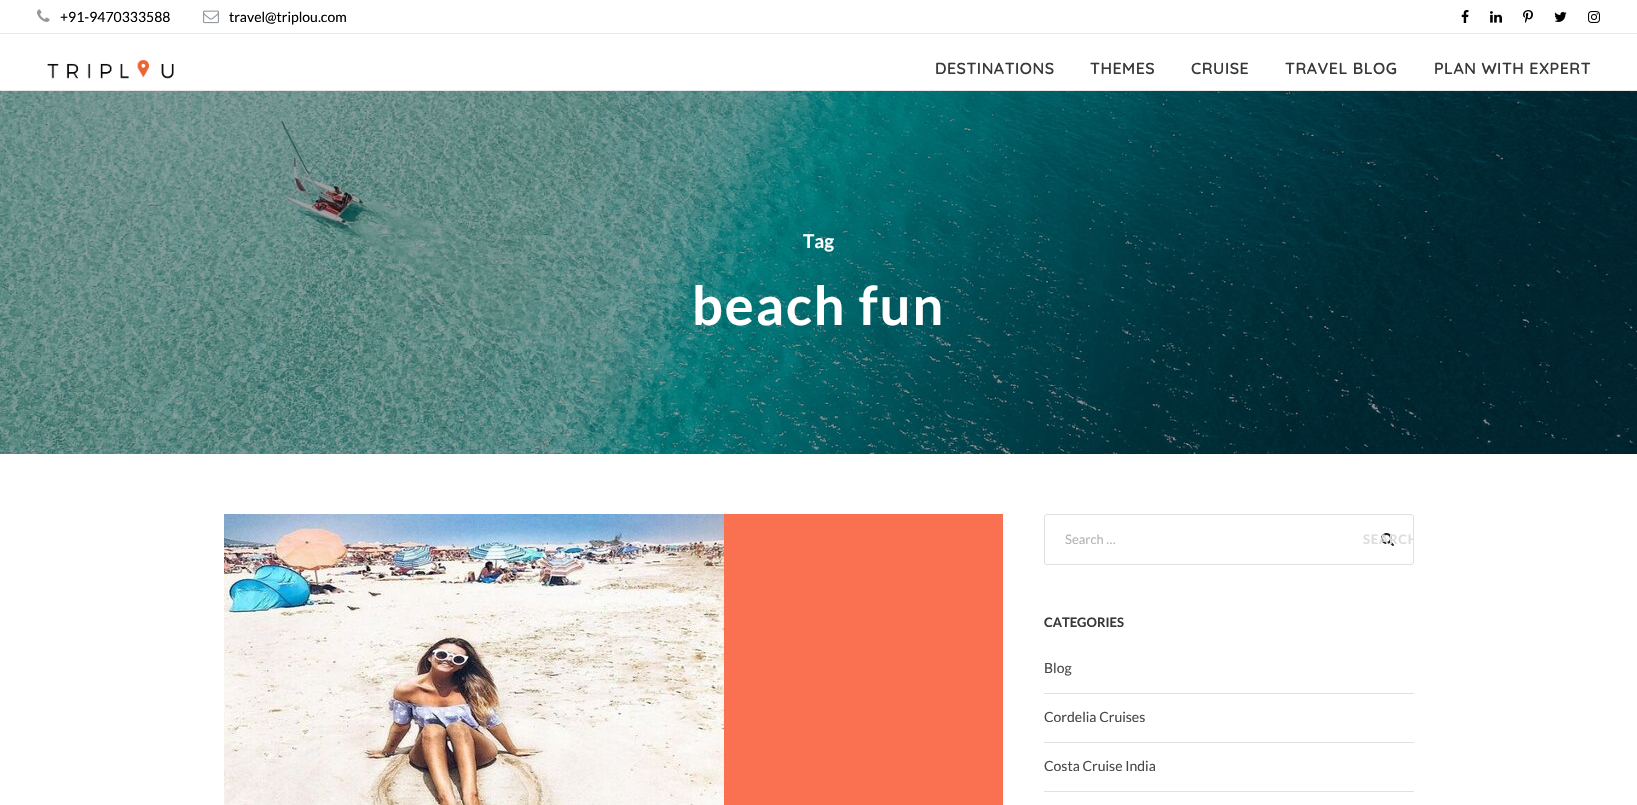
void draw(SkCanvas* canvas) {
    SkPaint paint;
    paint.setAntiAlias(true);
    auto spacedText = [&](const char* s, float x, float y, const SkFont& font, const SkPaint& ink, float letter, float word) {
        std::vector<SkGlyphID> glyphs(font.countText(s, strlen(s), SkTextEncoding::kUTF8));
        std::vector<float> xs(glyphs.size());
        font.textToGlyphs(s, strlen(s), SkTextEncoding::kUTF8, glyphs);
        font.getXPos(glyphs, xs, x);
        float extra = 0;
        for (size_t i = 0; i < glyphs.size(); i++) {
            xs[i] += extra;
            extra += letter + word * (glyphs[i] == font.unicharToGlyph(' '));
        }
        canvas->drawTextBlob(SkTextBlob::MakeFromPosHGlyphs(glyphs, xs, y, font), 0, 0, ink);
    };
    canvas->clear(0xFFFFFFFF);
    paint.setColor(0xFFE9E9E9);
    canvas->drawRect(SkRect::MakeXYWH(0, 33, 1637, 1), paint);
    canvas->drawImageRect(SkImages::DeferredFromEncodedData(SkData::MakeFromFileName("img1.png")), SkRect::MakeXYWH(37, 9, 13, 13), SkSamplingOptions());
    SkFont font1(fontMgr->matchFamilyStyle("Lato", SkFontStyle::Normal()), 14);
    font1.setSubpixel(true);
    paint.setColor(0xFF000000);
    canvas->drawString("+91-9470333588", 60, 22, font1, paint);
    canvas->drawImageRect(SkImages::DeferredFromEncodedData(SkData::MakeFromFileName("img2.png")), SkRect::MakeXYWH(203, 10, 16, 14), SkSamplingOptions());
    canvas->drawString("travel@triplou.com", 229, 22, font1, paint);
    canvas->drawImageRect(SkImages::DeferredFromEncodedData(SkData::MakeFromFileName("img3.png")), SkRect::MakeXYWH(1461, 10, 8, 13), SkSamplingOptions());
    canvas->drawImageRect(SkImages::DeferredFromEncodedData(SkData::MakeFromFileName("img4.png")), SkRect::MakeXYWH(1490, 11, 12, 12), SkSamplingOptions());
    canvas->drawImageRect(SkImages::DeferredFromEncodedData(SkData::MakeFromFileName("img5.png")), SkRect::MakeXYWH(1523, 10, 10, 13), SkSamplingOptions());
    canvas->drawImageRect(SkImages::DeferredFromEncodedData(SkData::MakeFromFileName("img6.png")), SkRect::MakeXYWH(1554, 12, 13, 10), SkSamplingOptions());
    canvas->drawImageRect(SkImages::DeferredFromEncodedData(SkData::MakeFromFileName("img7.png")), SkRect::MakeXYWH(1588, 11, 12, 12), SkSamplingOptions());
    paint.setColor(0xFFE8E8E8);
    canvas->drawRect(SkRect::MakeXYWH(0, 90, 1637, 1), paint);
    canvas->drawImageRect(SkImages::DeferredFromEncodedData(SkData::MakeFromFileName("img8.png")), SkRect::MakeXYWH(47, 59, 127, 20), SkSamplingOptions());
    SkFont font2(fontMgr->matchFamilyStyle("Quicksand", SkFontStyle(600, SkFontStyle::kNormal_Width, SkFontStyle::kUpright_Slant)), 16);
    font2.setSubpixel(true);
    paint.setColor(0xFF383838);
    spacedText("DESTINATIONS", 935, 74, font2, paint, 0.5f, 0);
    spacedText("THEMES", 1090, 74, font2, paint, 0.5f, 0);
    spacedText("CRUISE", 1191, 74, font2, paint, 0.5f, 0);
    spacedText("TRAVEL BLOG", 1285, 74, font2, paint, 0.5f, 0);
    spacedText("PLAN WITH EXPERT", 1434, 74, font2, paint, 0.5f, 0);
    canvas->drawImageRect(SkImages::DeferredFromEncodedData(SkData::MakeFromFileName("img9.png")), SkRect::MakeXYWH(0, 91, 1637, 363), SkSamplingOptions());
    SkFont font3(fontMgr->matchFamilyStyle("Lato", SkFontStyle::Bold()), 19);
    font3.setSubpixel(true);
    paint.setColor(0xFFFFFFFF);
    canvas->drawString("Tag", 803, 248, font3, paint);
    SkFont font4(fontMgr->matchFamilyStyle("Lato", SkFontStyle::Bold()), 54);
    font4.setSubpixel(true);
    spacedText("beach fun", 692, 325, font4, paint, 2, 0);
    paint.setColor(0xFFF97150);
    canvas->drawRect(SkRect::MakeXYWH(724, 514, 279, 291), paint);
    canvas->drawImageRect(SkImages::DeferredFromEncodedData(SkData::MakeFromFileName("img10.png")), SkRect::MakeXYWH(224, 514, 500, 291), SkSamplingOptions());
    paint.setStyle(SkPaint::kStroke_Style);
    paint.setStrokeWidth(1);
    paint.setColor(0xFFE0E0E0);
    canvas->drawRoundRect(SkRect::MakeXYWH(1044.5f, 514.5f, 369, 50), 2.5f, 2.5f, paint);
    SkFont font5(fontMgr->matchFamilyStyle("Lato", SkFontStyle::Normal()), 13);
    font5.setSubpixel(true);
    paint.setStyle(SkPaint::kFill_Style);
    paint.setColor(0xFFB5B5B5);
    canvas->drawString("Search …", 1065, 544, font5, paint);
    canvas->drawImageRect(SkImages::DeferredFromEncodedData(SkData::MakeFromFileName("img11.png")), SkRect::MakeXYWH(1381, 533, 13, 13), SkSamplingOptions());
    canvas->save();
    canvas->clipRect(SkRect::MakeXYWH(1363, 514, 51, 51));
    SkFont font6(fontMgr->matchFamilyStyle("Lato", SkFontStyle::Bold()), 13);
    font6.setSubpixel(true);
    paint.setColor(0xFFDDDDDD);
    spacedText("SEARCH", 1363, 544, font6, paint, 0.75f, 0);
    canvas->restore();
    paint.setColor(0xFF383838);
    canvas->drawString("CATEGORIES", 1044, 627, font6, paint);
    paint.setColor(0xFFE1E1E1);
    canvas->drawRect(SkRect::MakeXYWH(1044, 693, 370, 1), paint);
    paint.setColor(0xFF484848);
    canvas->drawString("Blog", 1044, 673, font1, paint);
    paint.setColor(0xFFE1E1E1);
    canvas->drawRect(SkRect::MakeXYWH(1044, 742, 370, 1), paint);
    paint.setColor(0xFF484848);
    canvas->drawString("Cordelia Cruises", 1044, 722, font1, paint);
    paint.setColor(0xFFE1E1E1);
    canvas->drawRect(SkRect::MakeXYWH(1044, 791, 370, 1), paint);
    paint.setColor(0xFF484848);
    canvas->drawString("Costa Cruise India", 1044, 771, font1, paint);
}
